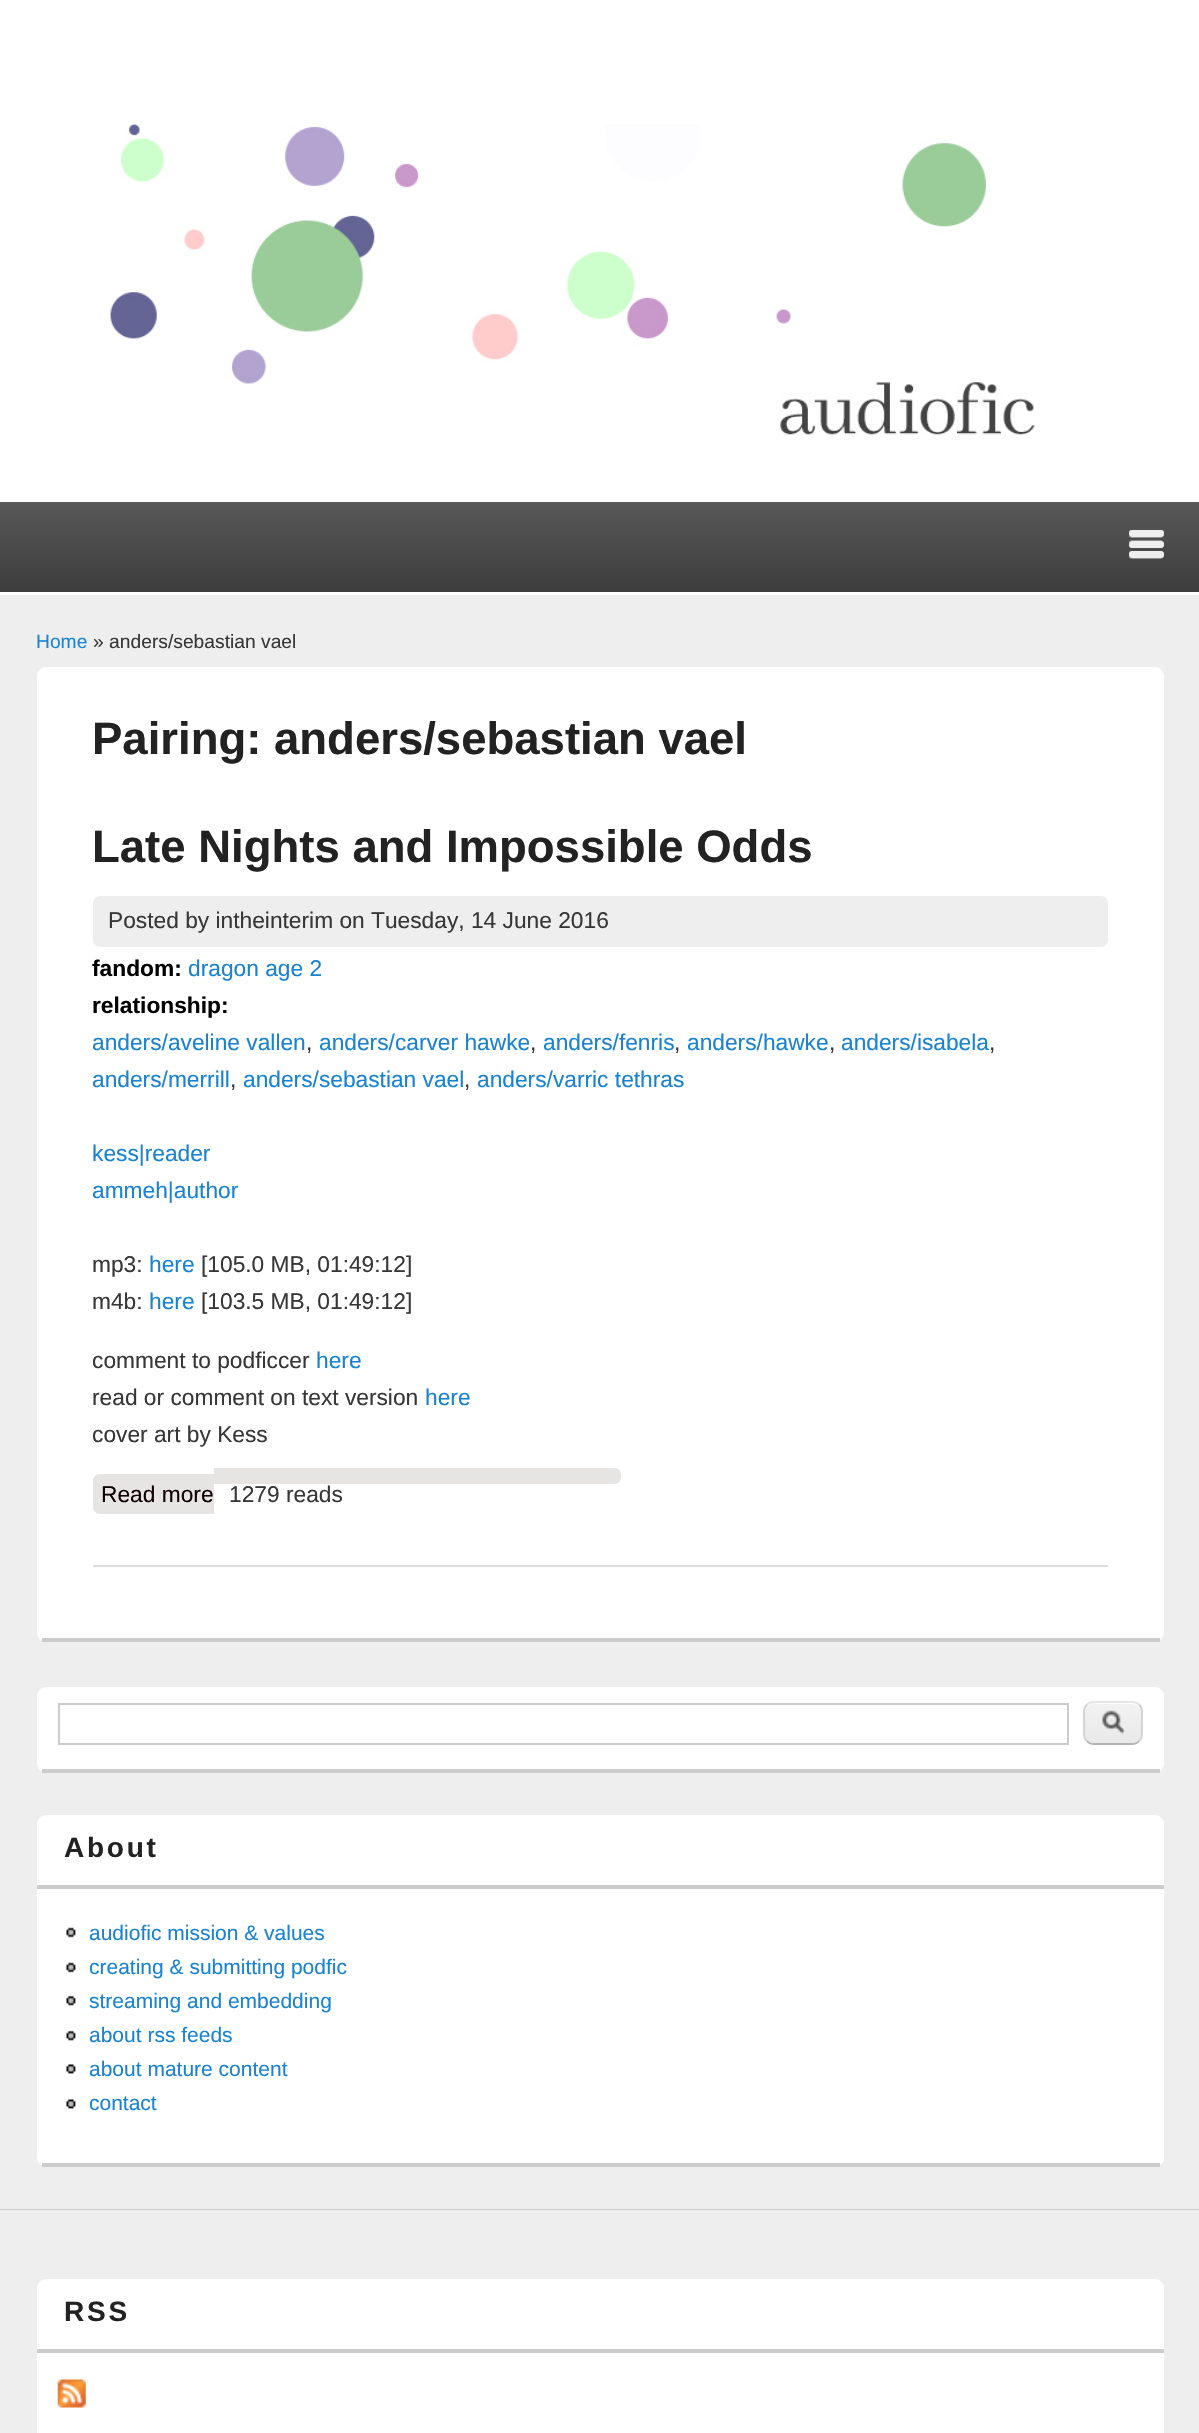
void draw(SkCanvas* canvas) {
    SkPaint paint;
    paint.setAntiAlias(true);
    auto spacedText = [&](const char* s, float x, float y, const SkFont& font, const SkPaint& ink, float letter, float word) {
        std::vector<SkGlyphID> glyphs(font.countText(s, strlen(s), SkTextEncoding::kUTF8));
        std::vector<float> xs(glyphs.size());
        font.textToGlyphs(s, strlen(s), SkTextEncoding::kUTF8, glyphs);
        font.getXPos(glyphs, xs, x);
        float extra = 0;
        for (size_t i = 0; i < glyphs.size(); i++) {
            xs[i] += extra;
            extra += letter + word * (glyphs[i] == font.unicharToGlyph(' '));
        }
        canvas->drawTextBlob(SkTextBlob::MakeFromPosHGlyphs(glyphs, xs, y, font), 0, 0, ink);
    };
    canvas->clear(0xFFEEEEEE);
    paint.setColor(0xFFFFFFFF);
    canvas->drawRect(SkRect::MakeXYWH(0, 0, 1199, 595), paint);
    canvas->drawImageRect(SkImages::DeferredFromEncodedData(SkData::MakeFromFileName("img1.png")), SkRect::MakeXYWH(110, 124, 925, 311), SkSamplingOptions());
    {
        const SkColor colors[] = {0xFF585858, 0xFF3D3D3D};
        const float stops[] = {0, 1};
        const SkPoint ends[] = {{600, 502}, {600, 592}};
        paint.setShader(SkGradientShader::MakeLinear(ends, colors, stops, 2, SkTileMode::kClamp));
        paint.setAlpha(255);
    }
    canvas->drawRect(SkRect::MakeXYWH(0, 502, 1199, 90), paint);
    canvas->drawImageRect(SkImages::DeferredFromEncodedData(SkData::MakeFromFileName("img2.png")), SkRect::MakeXYWH(1129, 530, 35, 29), SkSamplingOptions());
    SkFont font1(fontMgr->matchFamilyStyle("Liberation Sans", SkFontStyle::Normal()), 19.25f);
    font1.setSubpixel(true);
    paint.setShader(nullptr);
    paint.setColor(0xFF1982D1);
    canvas->drawString("Home", 36, 648, font1, paint);
    paint.setColor(0xFF373737);
    canvas->drawString("» anders/sebastian vael", 93, 648, font1, paint);
    paint.setColor(0xFFFFFFFF);
    canvas->drawRoundRect(SkRect::MakeXYWH(37, 667, 1127, 975), 9, 9, paint);
    paint.setColor(0xFFCCCCCC);
    canvas->drawRect(SkRect::MakeXYWH(42, 1638, 1118, 4), paint);
    SkFont font2(fontMgr->matchFamilyStyle("Liberation Sans", SkFontStyle::Bold()), 45.5f);
    font2.setSubpixel(true);
    paint.setColor(0xFF222222);
    canvas->drawString("Pairing: anders/sebastian vael", 92, 754, font2, paint);
    paint.setColor(0xFFDDDDDD);
    canvas->drawRect(SkRect::MakeXYWH(93, 1565, 1015, 2), paint);
    paint.setColor(0xFF222222);
    canvas->drawString("Late Nights and Impossible Odds", 92, 862, font2, paint);
    paint.setColor(0xFFEEEEEE);
    canvas->drawRoundRect(SkRect::MakeXYWH(93, 896, 1015, 51), 7, 7, paint);
    SkFont font3(fontMgr->matchFamilyStyle("Liberation Sans", SkFontStyle::Normal()), 22.75f);
    font3.setSubpixel(true);
    paint.setColor(0xFF373737);
    canvas->drawString("Posted by intheinterim on Tuesday, 14 June 2016", 108, 928, font3, paint);
    SkFont font4(fontMgr->matchFamilyStyle("Liberation Sans", SkFontStyle::Bold()), 22.75f);
    font4.setSubpixel(true);
    paint.setColor(0xFF000000);
    canvas->drawString("fandom:", 92, 976, font4, paint);
    paint.setColor(0xFF1982D1);
    canvas->drawString("dragon age 2", 188, 976, font3, paint);
    paint.setColor(0xFF000000);
    canvas->drawString("relationship:", 92, 1013, font4, paint);
    paint.setColor(0xFF1982D1);
    canvas->drawString("anders/aveline vallen", 92, 1050, font3, paint);
    paint.setColor(0xFF373737);
    canvas->drawString(",", 306, 1050, font3, paint);
    paint.setColor(0xFF1982D1);
    canvas->drawString("anders/carver hawke", 319, 1050, font3, paint);
    paint.setColor(0xFF373737);
    canvas->drawString(",", 530, 1050, font3, paint);
    paint.setColor(0xFF1982D1);
    canvas->drawString("anders/fenris", 543, 1050, font3, paint);
    paint.setColor(0xFF373737);
    canvas->drawString(",", 674, 1050, font3, paint);
    paint.setColor(0xFF1982D1);
    canvas->drawString("anders/hawke", 687, 1050, font3, paint);
    paint.setColor(0xFF373737);
    canvas->drawString(",", 829, 1050, font3, paint);
    paint.setColor(0xFF1982D1);
    canvas->drawString("anders/isabela", 841, 1050, font3, paint);
    paint.setColor(0xFF373737);
    canvas->drawString(",", 989, 1050, font3, paint);
    paint.setColor(0xFF1982D1);
    canvas->drawString("anders/merrill", 92, 1087, font3, paint);
    paint.setColor(0xFF373737);
    canvas->drawString(",", 230, 1087, font3, paint);
    paint.setColor(0xFF1982D1);
    canvas->drawString("anders/sebastian vael", 243, 1087, font3, paint);
    paint.setColor(0xFF373737);
    canvas->drawString(",", 464, 1087, font3, paint);
    paint.setColor(0xFF1982D1);
    canvas->drawString("anders/varric tethras", 477, 1087, font3, paint);
    canvas->drawString("kess|reader", 92, 1161, font3, paint);
    canvas->drawString("ammeh|author", 92, 1198, font3, paint);
    paint.setColor(0xFF373737);
    canvas->drawString("mp3:", 92, 1272, font3, paint);
    paint.setColor(0xFF1982D1);
    canvas->drawString("here", 149, 1272, font3, paint);
    paint.setColor(0xFF373737);
    canvas->drawString("[105.0 MB, 01:49:12]", 201, 1272, font3, paint);
    canvas->drawString("m4b:", 92, 1309, font3, paint);
    paint.setColor(0xFF1982D1);
    canvas->drawString("here", 149, 1309, font3, paint);
    paint.setColor(0xFF373737);
    canvas->drawString("[103.5 MB, 01:49:12]", 201, 1309, font3, paint);
    canvas->drawString("comment to podficcer", 92, 1368, font3, paint);
    paint.setColor(0xFF1982D1);
    canvas->drawString("here", 316, 1368, font3, paint);
    paint.setColor(0xFF373737);
    canvas->drawString("read or comment on text version", 92, 1405, font3, paint);
    paint.setColor(0xFF1982D1);
    canvas->drawString("here", 425, 1405, font3, paint);
    paint.setColor(0xFF373737);
    canvas->drawString("cover art by Kess", 92, 1442, font3, paint);
    paint.setColor(0xFFE7E5E3);
    canvas->drawPath(SkPathBuilder().moveTo(100, 1474).lineTo(214, 1474).lineTo(214, 1514).lineTo(100, 1514).cubicTo(96, 1514, 93, 1511, 93, 1507).lineTo(93, 1481).cubicTo(93, 1477, 96, 1474, 100, 1474).close().detach(), paint);
    paint.setColor(0xFF100100);
    canvas->drawString("Read more", 101, 1502, font3, paint);
    paint.setColor(0xFF373737);
    canvas->drawString("1279 reads", 229, 1502, font3, paint);
    paint.setColor(0xFFE7E5E3);
    canvas->drawPath(SkPathBuilder().moveTo(214, 1468).lineTo(614, 1468).cubicTo(618, 1468, 621, 1471, 621, 1475).lineTo(621, 1477).cubicTo(621, 1481, 618, 1484, 614, 1484).lineTo(214, 1484).close().detach(), paint);
    paint.setColor(0xFFFFFFFF);
    canvas->drawRoundRect(SkRect::MakeXYWH(37, 1687, 1127, 86), 9, 9, paint);
    paint.setColor(0xFFCCCCCC);
    canvas->drawRect(SkRect::MakeXYWH(42, 1769, 1118, 4), paint);
    paint.setStyle(SkPaint::kStroke_Style);
    paint.setStrokeWidth(2);
    canvas->drawRect(SkRect::MakeXYWH(59, 1704, 1009, 40), paint);
    canvas->drawImageRect(SkImages::DeferredFromEncodedData(SkData::MakeFromFileName("img3.png")), SkRect::MakeXYWH(1083, 1702, 60, 42), SkSamplingOptions());
    paint.setStyle(SkPaint::kFill_Style);
    paint.setColor(0xFFFFFFFF);
    canvas->drawPath(SkPathBuilder().moveTo(1094, 1704).lineTo(1132, 1704).cubicTo(1137, 1704, 1141, 1708, 1141, 1713).cubicTo(1141, 1703, 1134, 1703, 1126, 1703).lineTo(1100, 1703).cubicTo(1092, 1703, 1085, 1703, 1085, 1713).cubicTo(1085, 1708, 1089, 1704, 1094, 1704).close().detach(), paint);
    paint.setStyle(SkPaint::kStroke_Style);
    paint.setStrokeWidth(1.8f);
    paint.setColor(0xFFE4E4E4);
    canvas->drawPath(SkPathBuilder().moveTo(1087, 1704.5f).cubicTo(1088.5f, 1703, 1091, 1702, 1094, 1702).lineTo(1132, 1702).cubicTo(1135, 1702, 1137.5f, 1703, 1139, 1704.5f).detach(), paint);
    paint.setColor(0xFFD2D2D2);
    canvas->drawPath(SkPathBuilder().moveTo(1139, 1704.5f).cubicTo(1141, 1706.5f, 1142, 1709, 1142, 1711.5f).lineTo(1142, 1734).cubicTo(1142, 1737, 1141, 1739.5f, 1139, 1741).detach(), paint);
    paint.setColor(0xFFB4B4B4);
    canvas->drawPath(SkPathBuilder().moveTo(1139, 1741).cubicTo(1137.5f, 1743, 1135, 1744, 1132, 1744).lineTo(1094, 1744).cubicTo(1091, 1744, 1088.5f, 1743, 1087, 1741).detach(), paint);
    paint.setColor(0xFFD2D2D2);
    canvas->drawPath(SkPathBuilder().moveTo(1087, 1741).cubicTo(1085, 1739.5f, 1084, 1737, 1084, 1734).lineTo(1084, 1711.5f).cubicTo(1084, 1709, 1085, 1706.5f, 1087, 1704.5f).detach(), paint);
    paint.setStyle(SkPaint::kFill_Style);
    paint.setColor(0xFFFFFFFF);
    canvas->drawRoundRect(SkRect::MakeXYWH(37, 1815, 1127, 352), 9, 9, paint);
    paint.setColor(0xFFCCCCCC);
    canvas->drawRect(SkRect::MakeXYWH(42, 2163, 1118, 4), paint);
    canvas->drawRect(SkRect::MakeXYWH(37, 1885, 1127, 4), paint);
    SkFont font5(fontMgr->matchFamilyStyle("Liberation Sans", SkFontStyle::Bold()), 28);
    font5.setSubpixel(true);
    paint.setColor(0xFF222222);
    spacedText("About", 64, 1857, font5, paint, 2.75f, 0);
    canvas->drawImageRect(SkImages::DeferredFromEncodedData(SkData::MakeFromFileName("img4.png")), SkRect::MakeXYWH(66, 1927, 10, 11), SkSamplingOptions());
    SkFont font6(fontMgr->matchFamilyStyle("Liberation Sans", SkFontStyle::Normal()), 21);
    font6.setSubpixel(true);
    paint.setColor(0xFF1982D1);
    canvas->drawString("audiofic mission & values", 89, 1940, font6, paint);
    canvas->drawImageRect(SkImages::DeferredFromEncodedData(SkData::MakeFromFileName("img4.png")), SkRect::MakeXYWH(66, 1962, 10, 11), SkSamplingOptions());
    canvas->drawString("creating & submitting podfic", 89, 1974, font6, paint);
    canvas->drawImageRect(SkImages::DeferredFromEncodedData(SkData::MakeFromFileName("img5.png")), SkRect::MakeXYWH(66, 1995, 10, 11), SkSamplingOptions());
    canvas->drawString("streaming and embedding", 89, 2008, font6, paint);
    canvas->drawImageRect(SkImages::DeferredFromEncodedData(SkData::MakeFromFileName("img5.png")), SkRect::MakeXYWH(66, 2030, 10, 11), SkSamplingOptions());
    canvas->drawString("about rss feeds", 89, 2042, font6, paint);
    canvas->drawImageRect(SkImages::DeferredFromEncodedData(SkData::MakeFromFileName("img6.png")), SkRect::MakeXYWH(66, 2064, 10, 10), SkSamplingOptions());
    canvas->drawString("about mature content", 89, 2076, font6, paint);
    canvas->drawImageRect(SkImages::DeferredFromEncodedData(SkData::MakeFromFileName("img6.png")), SkRect::MakeXYWH(66, 2099, 10, 10), SkSamplingOptions());
    canvas->drawString("contact", 89, 2110, font6, paint);
    paint.setColor(0xFFCCCCCC);
    canvas->drawRect(SkRect::MakeXYWH(0, 2209, 1199, 1), paint);
    paint.setColor(0xFFFFFFFF);
    canvas->drawRoundRect(SkRect::MakeXYWH(37, 2279, 1127, 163), 9, 9, paint);
    paint.setColor(0xFFCCCCCC);
    canvas->drawRect(SkRect::MakeXYWH(37, 2349, 1127, 4), paint);
    paint.setColor(0xFF222222);
    spacedText("RSS", 64, 2321, font5, paint, 2.75f, 0);
    canvas->drawImageRect(SkImages::DeferredFromEncodedData(SkData::MakeFromFileName("img7.png")), SkRect::MakeXYWH(57, 2379, 29, 29), SkSamplingOptions());
}
